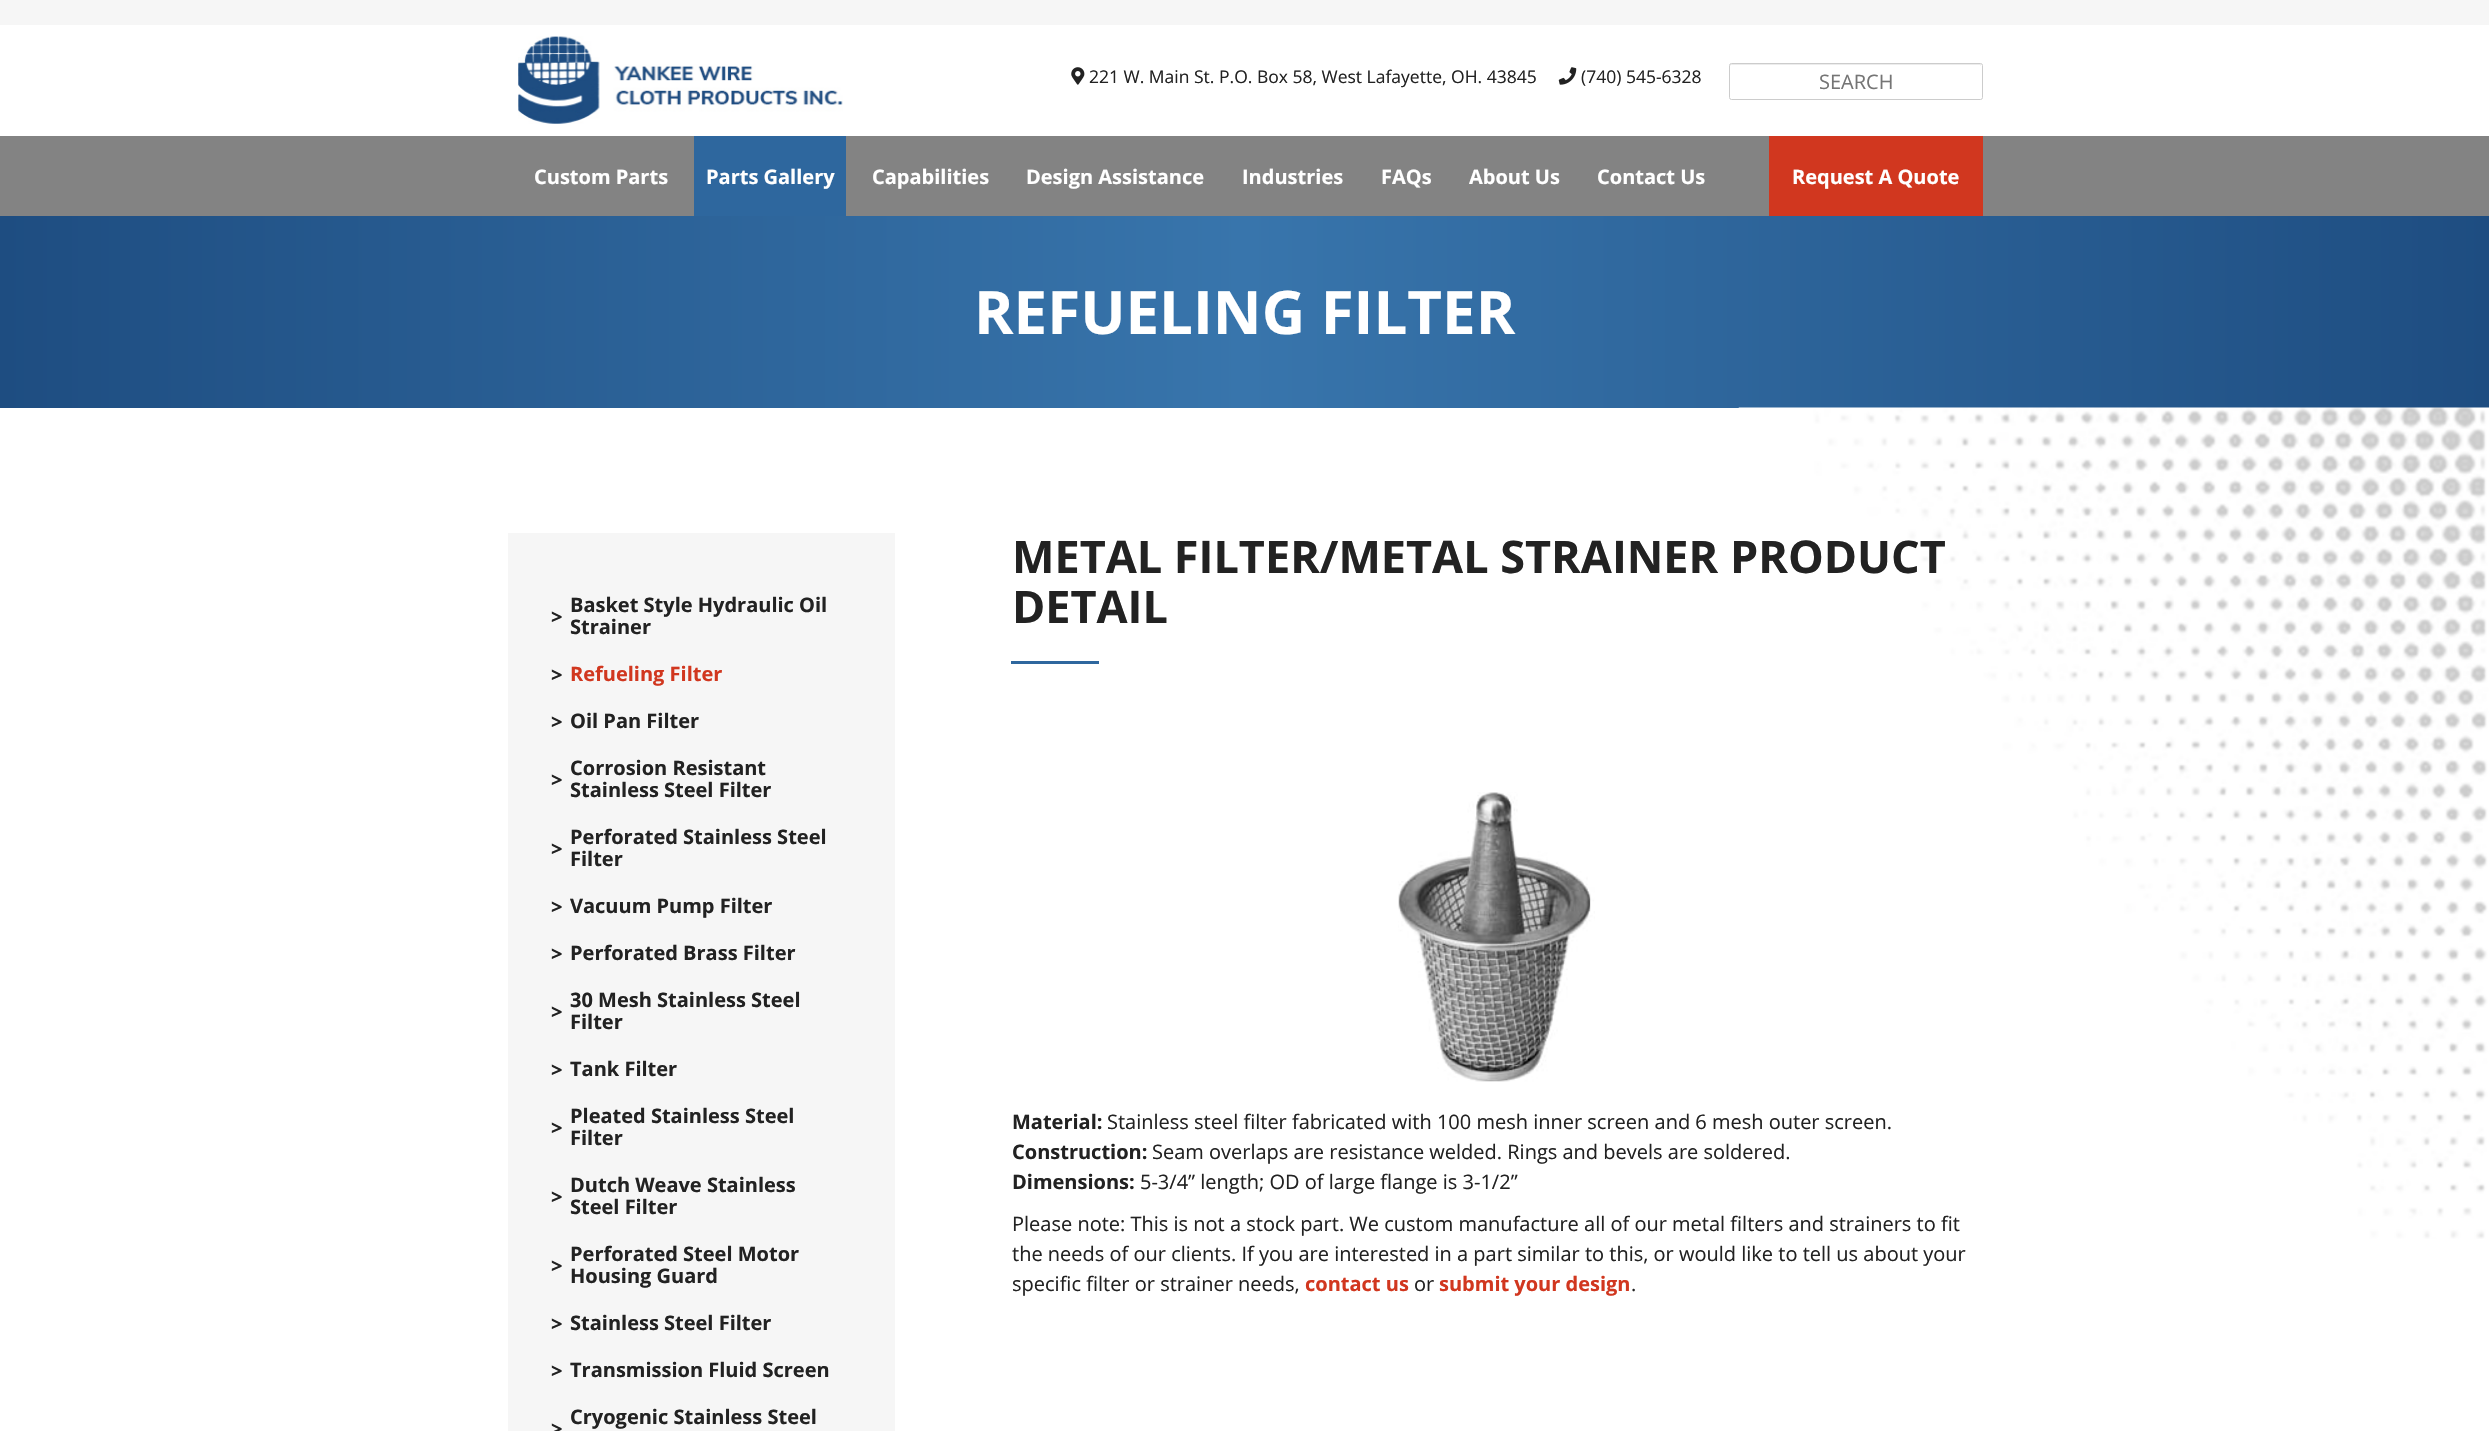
void draw(SkCanvas* canvas) {
    SkPaint paint;
    paint.setAntiAlias(true);
    canvas->clear(0xFFFFFFFF);
    paint.setColor(0xFFF6F6F6);
    canvas->drawRect(SkRect::MakeXYWH(0, 0, 2489, 25), paint);
    canvas->drawImageRect(SkImages::DeferredFromEncodedData(SkData::MakeFromFileName("img1.png")), SkRect::MakeXYWH(518, 36, 325, 88), SkSamplingOptions());
    canvas->drawImageRect(SkImages::DeferredFromEncodedData(SkData::MakeFromFileName("img2.png")), SkRect::MakeXYWH(1071, 67, 14, 18), SkSamplingOptions());
    SkFont font1(fontMgr->matchFamilyStyle("Open Sans", SkFontStyle::Normal()), 17.5f);
    font1.setSubpixel(true);
    paint.setColor(0xFF222222);
    canvas->drawString("221 W. Main St. P.O. Box 58, West Lafayette, OH. 43845", 1089, 83, font1, paint);
    canvas->drawImageRect(SkImages::DeferredFromEncodedData(SkData::MakeFromFileName("img3.png")), SkRect::MakeXYWH(1558, 67, 19, 18), SkSamplingOptions());
    canvas->drawString("(740) 545-6328", 1581, 83, font1, paint);
    paint.setColor(0xFFECECEC);
    canvas->drawPath(SkPathBuilder().moveTo(1731, 65).lineTo(1980, 65).lineTo(1981, 66).lineTo(1981, 64).lineTo(1731, 64).cubicTo(1730, 64, 1730, 65, 1730, 66).close().detach(), paint);
    paint.setStyle(SkPaint::kStroke_Style);
    paint.setStrokeWidth(1);
    paint.setColor(0xFFCCCCCC);
    canvas->drawRoundRect(SkRect::MakeXYWH(1729.5f, 63.5f, 253, 36), 2, 2, paint);
    SkFont font2(fontMgr->matchFamilyStyle("Open Sans", SkFontStyle::Normal()), 20);
    font2.setSubpixel(true);
    paint.setStyle(SkPaint::kFill_Style);
    paint.setColor(0xFF757575);
    canvas->drawString("SEARCH", 1819, 89, font2, paint);
    paint.setColor(0xFF838383);
    canvas->drawRect(SkRect::MakeXYWH(0, 136, 2489, 80), paint);
    SkFont font3(fontMgr->matchFamilyStyle("Open Sans", SkFontStyle::Bold()), 20);
    font3.setSubpixel(true);
    paint.setColor(0xFFFFFFFF);
    canvas->drawString("Custom Parts", 534, 184, font3, paint);
    paint.setColor(0xFF2E679E);
    canvas->drawRect(SkRect::MakeXYWH(694, 136, 152, 80), paint);
    paint.setColor(0xFFFFFFFF);
    canvas->drawString("Parts Gallery", 706, 184, font3, paint);
    canvas->drawString("Capabilities", 872, 184, font3, paint);
    canvas->drawString("Design Assistance", 1026, 184, font3, paint);
    canvas->drawString("Industries", 1242, 184, font3, paint);
    canvas->drawString("FAQs", 1381, 184, font3, paint);
    canvas->drawString("About Us", 1469, 184, font3, paint);
    canvas->drawString("Contact Us", 1597, 184, font3, paint);
    paint.setColor(0xFFD1371F);
    canvas->drawRect(SkRect::MakeXYWH(1769, 136, 214, 80), paint);
    paint.setColor(0xFFFFFFFF);
    canvas->drawString("Request A Quote", 1792, 184, font3, paint);
    {
        const SkColor colors[] = {0xFF1E4D81, 0xFF3875AC, 0xFF1E4D81};
        const float stops[] = {0, 0.5f, 1};
        const SkPoint ends[] = {{0, 312}, {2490, 312}};
        paint.setShader(SkGradientShader::MakeLinear(ends, colors, stops, 3, SkTileMode::kClamp));
        paint.setAlpha(255);
    }
    canvas->drawRect(SkRect::MakeXYWH(0, 216, 2489, 192), paint);
    SkFont font4(fontMgr->matchFamilyStyle("Open Sans", SkFontStyle::Bold()), 60);
    font4.setSubpixel(true);
    paint.setShader(nullptr);
    paint.setColor(0xFFFFFFFF);
    canvas->drawString("REFUELING FILTER", 974, 334, font4, paint);
    canvas->drawImageRect(SkImages::DeferredFromEncodedData(SkData::MakeFromFileName("img4.png")), SkRect::MakeXYWH(1738, 407, 751, 832), SkSamplingOptions());
    paint.setColor(0xFFF6F6F6);
    canvas->drawRect(SkRect::MakeXYWH(508, 533, 387, 898), paint);
    paint.setColor(0xFF222222);
    canvas->drawString(">", 551, 624, font3, paint);
    canvas->drawString("Basket Style Hydraulic Oil", 570, 612, font3, paint);
    canvas->drawString("Strainer", 570, 634, font3, paint);
    canvas->drawString(">", 551, 682, font3, paint);
    paint.setColor(0xFFD1371F);
    canvas->drawString("Refueling Filter", 570, 681, font3, paint);
    paint.setColor(0xFF222222);
    canvas->drawString(">", 551, 729, font3, paint);
    canvas->drawString("Oil Pan Filter", 570, 728, font3, paint);
    canvas->drawString(">", 551, 787, font3, paint);
    canvas->drawString("Corrosion Resistant", 570, 775, font3, paint);
    canvas->drawString("Stainless Steel Filter", 570, 797, font3, paint);
    canvas->drawString(">", 551, 856, font3, paint);
    canvas->drawString("Perforated Stainless Steel", 570, 844, font3, paint);
    canvas->drawString("Filter", 570, 866, font3, paint);
    canvas->drawString(">", 551, 914, font3, paint);
    canvas->drawString("Vacuum Pump Filter", 570, 913, font3, paint);
    canvas->drawString(">", 551, 961, font3, paint);
    canvas->drawString("Perforated Brass Filter", 570, 960, font3, paint);
    canvas->drawString(">", 551, 1019, font3, paint);
    canvas->drawString("30 Mesh Stainless Steel", 570, 1007, font3, paint);
    canvas->drawString("Filter", 570, 1029, font3, paint);
    canvas->drawString(">", 551, 1077, font3, paint);
    canvas->drawString("Tank Filter", 570, 1076, font3, paint);
    canvas->drawString(">", 551, 1135, font3, paint);
    canvas->drawString("Pleated Stainless Steel", 570, 1123, font3, paint);
    canvas->drawString("Filter", 570, 1145, font3, paint);
    canvas->drawString(">", 551, 1204, font3, paint);
    canvas->drawString("Dutch Weave Stainless", 570, 1192, font3, paint);
    canvas->drawString("Steel Filter", 570, 1214, font3, paint);
    canvas->drawString(">", 551, 1273, font3, paint);
    canvas->drawString("Perforated Steel Motor", 570, 1261, font3, paint);
    canvas->drawString("Housing Guard", 570, 1283, font3, paint);
    canvas->drawString(">", 551, 1331, font3, paint);
    canvas->drawString("Stainless Steel Filter", 570, 1330, font3, paint);
    canvas->drawString(">", 551, 1378, font3, paint);
    canvas->drawString("Transmission Fluid Screen", 570, 1377, font3, paint);
    canvas->drawString(">", 551, 1436, font3, paint);
    canvas->drawString("Cryogenic Stainless Steel", 570, 1424, font3, paint);
    SkFont font5(fontMgr->matchFamilyStyle("Open Sans", SkFontStyle::Bold()), 45);
    font5.setSubpixel(true);
    canvas->drawString("METAL FILTER/METAL STRAINER PRODUCT", 1012, 573, font5, paint);
    canvas->drawString("DETAIL", 1012, 623, font5, paint);
    paint.setColor(0xFF2E679E);
    canvas->drawRect(SkRect::MakeXYWH(1011, 661, 88, 3), paint);
    canvas->drawImageRect(SkImages::DeferredFromEncodedData(SkData::MakeFromFileName("img5.png")), SkRect::MakeXYWH(1398, 792, 197, 290), SkSamplingOptions());
    paint.setColor(0xFF222222);
    canvas->drawString("Material:", 1012, 1129, font3, paint);
    canvas->drawString("Stainless steel filter fabricated with 100 mesh inner screen and 6 mesh outer screen.", 1107, 1129, font2, paint);
    canvas->drawString("Construction:", 1012, 1159, font3, paint);
    canvas->drawString("Seam overlaps are resistance welded. Rings and bevels are soldered.", 1152, 1159, font2, paint);
    canvas->drawString("Dimensions:", 1012, 1189, font3, paint);
    canvas->drawString("5-3/4” length; OD of large flange is 3-1/2”", 1140, 1189, font2, paint);
    canvas->drawString("Please note: This is not a stock part. We custom manufacture all of our metal filters and strainers to fit", 1012, 1231, font2, paint);
    canvas->drawString("the needs of our clients. If you are interested in a part similar to this, or would like to tell us about your", 1012, 1261, font2, paint);
    canvas->drawString("specific filter or strainer needs,", 1012, 1291, font2, paint);
    paint.setColor(0xFFD1371F);
    canvas->drawString("contact us", 1305, 1291, font3, paint);
    paint.setColor(0xFF222222);
    canvas->drawString("or", 1414, 1291, font2, paint);
    paint.setColor(0xFFD1371F);
    canvas->drawString("submit your design", 1439, 1291, font3, paint);
    paint.setColor(0xFF222222);
    canvas->drawString(".", 1631, 1291, font2, paint);
}
